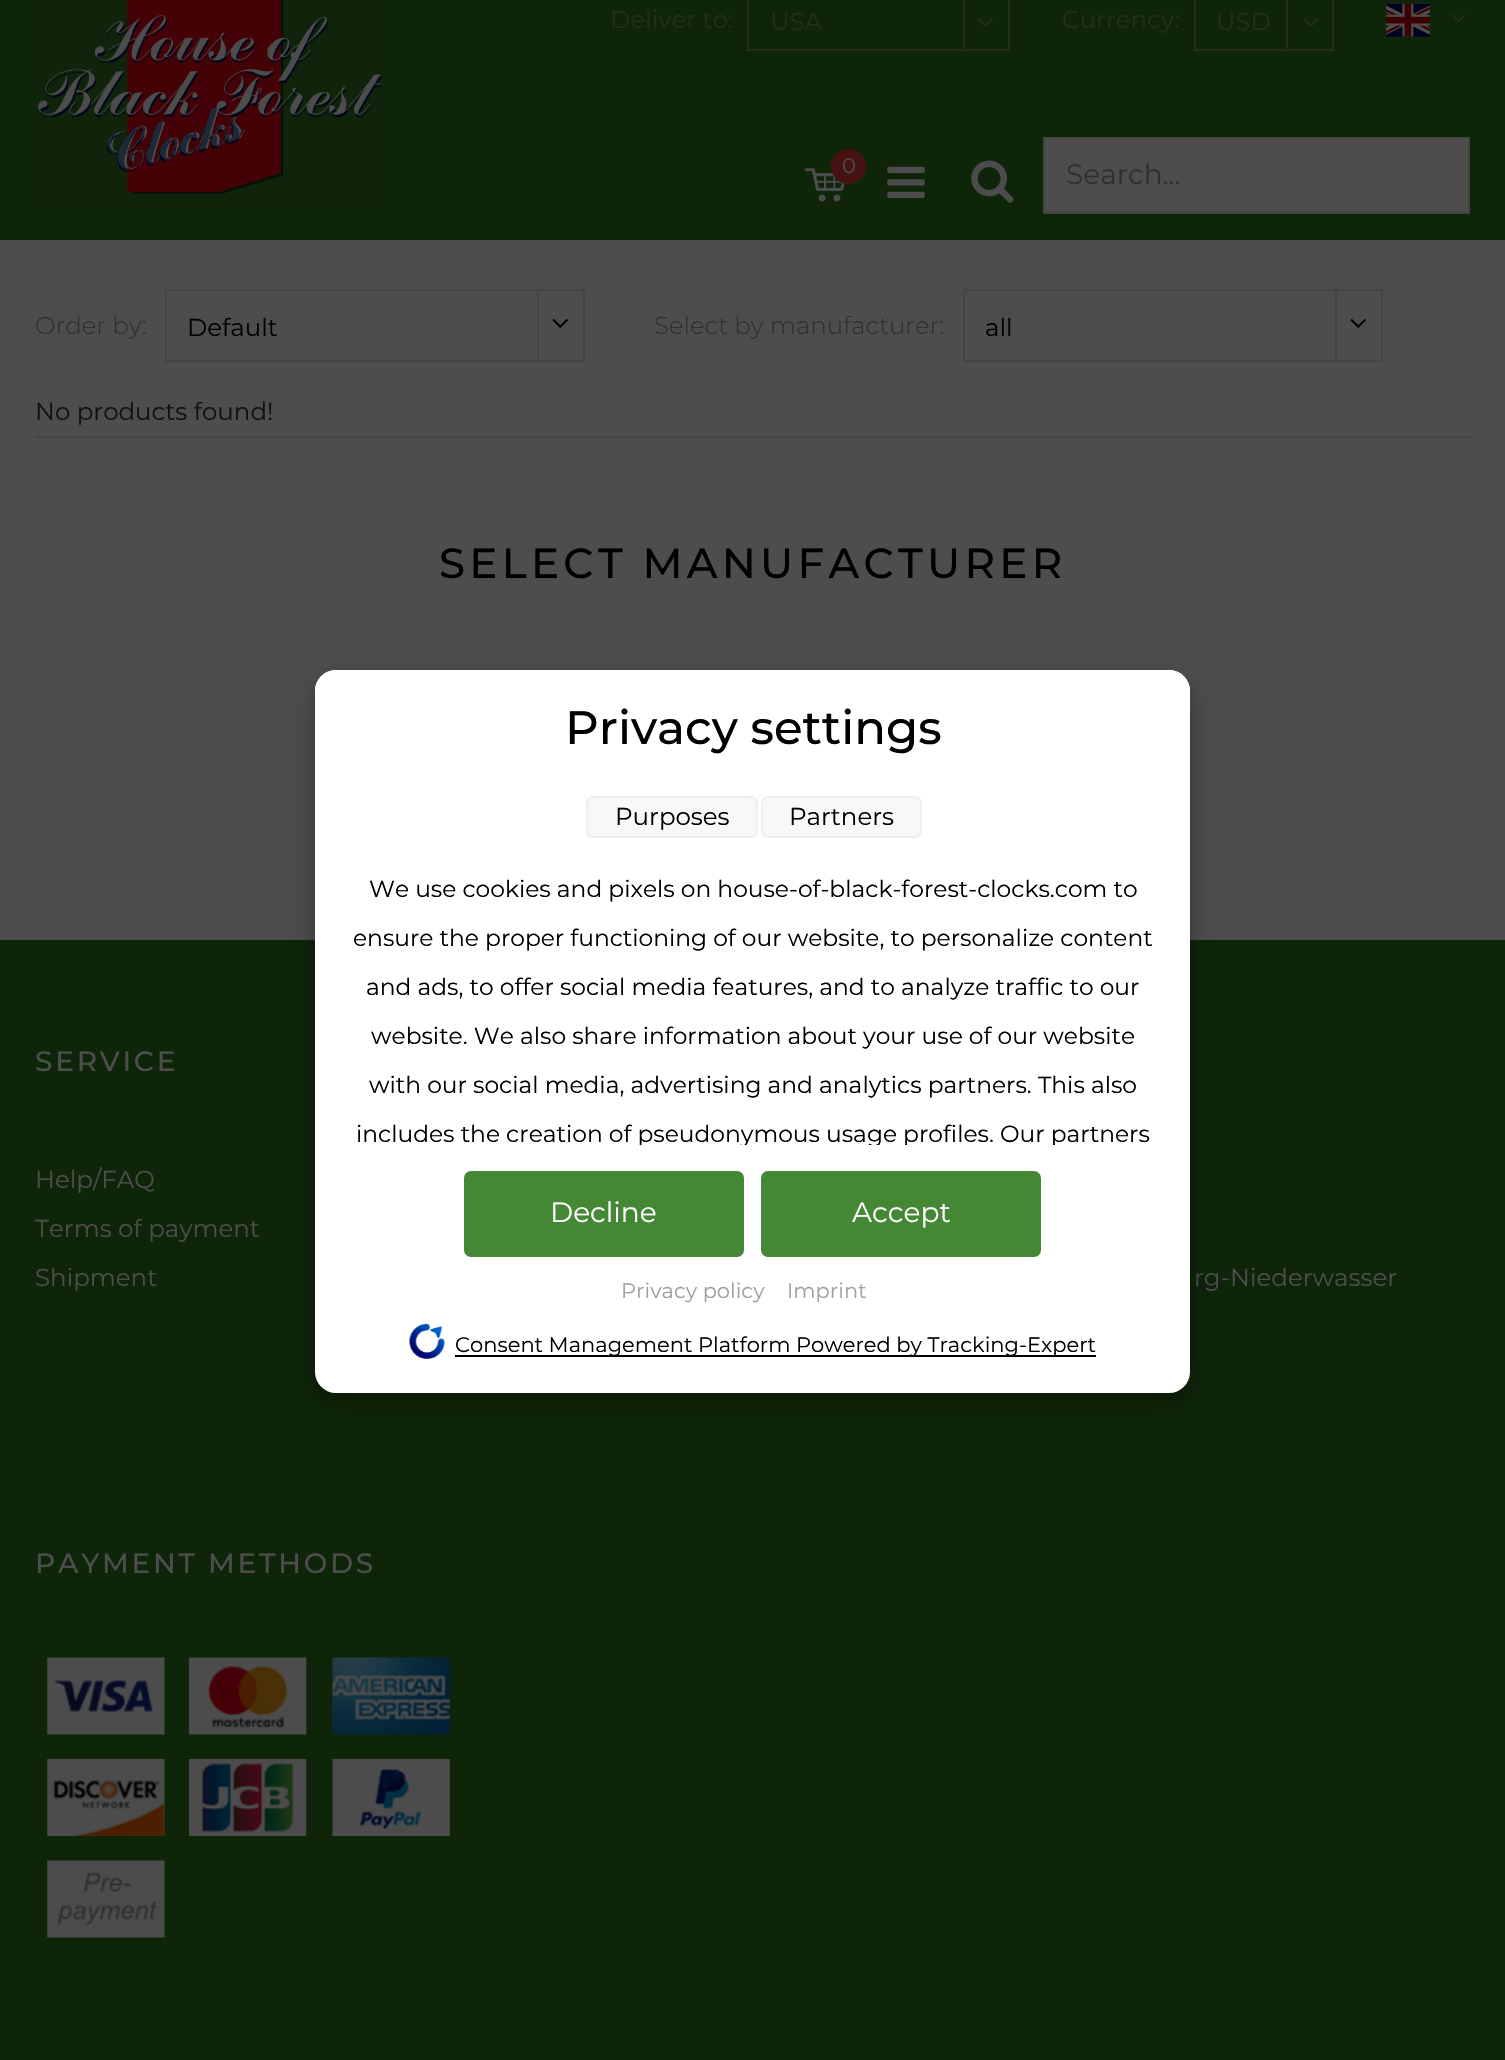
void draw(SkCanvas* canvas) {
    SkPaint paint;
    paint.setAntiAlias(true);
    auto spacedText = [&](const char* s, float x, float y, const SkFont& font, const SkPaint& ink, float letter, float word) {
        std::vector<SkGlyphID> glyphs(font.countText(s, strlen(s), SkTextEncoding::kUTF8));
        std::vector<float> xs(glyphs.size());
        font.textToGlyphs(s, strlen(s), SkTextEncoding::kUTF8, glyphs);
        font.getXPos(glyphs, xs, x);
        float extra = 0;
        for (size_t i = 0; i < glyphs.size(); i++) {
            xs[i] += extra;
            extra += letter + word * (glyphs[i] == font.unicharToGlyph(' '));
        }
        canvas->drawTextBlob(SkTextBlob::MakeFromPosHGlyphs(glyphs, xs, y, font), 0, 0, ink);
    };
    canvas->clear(0xFF4D4D4D);
    paint.setColor(0xFF0E2509);
    canvas->drawRect(SkRect::MakeXYWH(0, 0, 1505, 240), paint);
    canvas->drawImageRect(SkImages::DeferredFromEncodedData(SkData::MakeFromFileName("img1.png")), SkRect::MakeXYWH(35, 0, 350, 210), SkSamplingOptions());
    SkFont font1(fontMgr->matchFamilyStyle("Montserrat", SkFontStyle(100, SkFontStyle::kNormal_Width, SkFontStyle::kUpright_Slant)), 24.5f);
    font1.setSubpixel(true);
    paint.setColor(0xFF252F17);
    canvas->drawString("Deliver to:", 610, 28, font1, paint);
    paint.setStyle(SkPaint::kStroke_Style);
    paint.setStrokeWidth(2);
    canvas->drawRect(SkRect::MakeXYWH(748, -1, 261, 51), paint);
    paint.setStyle(SkPaint::kFill_Style);
    canvas->drawString("USA", 770, 30, font1, paint);
    canvas->drawRect(SkRect::MakeXYWH(963, 0, 2, 49), paint);
    canvas->drawImageRect(SkImages::DeferredFromEncodedData(SkData::MakeFromFileName("img2.png")), SkRect::MakeXYWH(977, 18, 17, 9), SkSamplingOptions());
    canvas->drawString("Currency:", 1062, 28, font1, paint);
    paint.setStyle(SkPaint::kStroke_Style);
    canvas->drawRect(SkRect::MakeXYWH(1195, -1, 138, 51), paint);
    paint.setStyle(SkPaint::kFill_Style);
    canvas->drawString("USD", 1216, 30, font1, paint);
    canvas->drawRect(SkRect::MakeXYWH(1286, 0, 2, 49), paint);
    canvas->drawImageRect(SkImages::DeferredFromEncodedData(SkData::MakeFromFileName("img3.png")), SkRect::MakeXYWH(1303, 18, 16, 9), SkSamplingOptions());
    canvas->drawImageRect(SkImages::DeferredFromEncodedData(SkData::MakeFromFileName("img4.png")), SkRect::MakeXYWH(1386, 4, 44, 33), SkSamplingOptions());
    canvas->drawImageRect(SkImages::DeferredFromEncodedData(SkData::MakeFromFileName("img5.png")), SkRect::MakeXYWH(1451, 14, 15, 9), SkSamplingOptions());
    canvas->drawImageRect(SkImages::DeferredFromEncodedData(SkData::MakeFromFileName("img6.png")), SkRect::MakeXYWH(804, 168, 41, 34), SkSamplingOptions());
    paint.setColor(0xFF471212);
    canvas->drawCircle(848.5f, 166.5f, 17.5f, paint);
    SkFont font2(fontMgr->matchFamilyStyle("Montserrat", SkFontStyle(100, SkFontStyle::kNormal_Width, SkFontStyle::kUpright_Slant)), 21);
    font2.setSubpixel(true);
    paint.setColor(0xFF4D4D4D);
    canvas->drawString("0", 842, 173, font2, paint);
    canvas->drawImageRect(SkImages::DeferredFromEncodedData(SkData::MakeFromFileName("img7.png")), SkRect::MakeXYWH(887, 166, 38, 33), SkSamplingOptions());
    canvas->drawImageRect(SkImages::DeferredFromEncodedData(SkData::MakeFromFileName("img8.png")), SkRect::MakeXYWH(971, 160, 43, 43), SkSamplingOptions());
    canvas->drawRect(SkRect::MakeXYWH(1044, 138, 425, 75), paint);
    paint.setStyle(SkPaint::kStroke_Style);
    paint.setColor(0xFF444444);
    canvas->drawRect(SkRect::MakeXYWH(1044, 138, 425, 75), paint);
    SkFont font3(fontMgr->matchFamilyStyle("Montserrat", SkFontStyle(100, SkFontStyle::kNormal_Width, SkFontStyle::kUpright_Slant)), 28);
    font3.setSubpixel(true);
    paint.setStyle(SkPaint::kFill_Style);
    paint.setColor(0xFF2F2F30);
    canvas->drawString("Search...", 1066, 184, font3, paint);
    paint.setColor(0xFF444444);
    canvas->drawRect(SkRect::MakeXYWH(35, 436, 1435, 2), paint);
    SkFont font4(fontMgr->matchFamilyStyle("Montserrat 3", SkFontStyle(100, SkFontStyle::kNormal_Width, SkFontStyle::kUpright_Slant)), 24.5f);
    font4.setSubpixel(true);
    paint.setColor(0xFF2F2F30);
    canvas->drawString("Order by:", 35, 334, font4, paint);
    paint.setStyle(SkPaint::kStroke_Style);
    paint.setColor(0xFF444444);
    canvas->drawRect(SkRect::MakeXYWH(166, 290, 418, 71), paint);
    paint.setStyle(SkPaint::kFill_Style);
    paint.setColor(0xFF000000);
    canvas->drawString("Default", 187, 336, font1, paint);
    paint.setColor(0xFF444444);
    canvas->drawRect(SkRect::MakeXYWH(537, 291, 2, 70), paint);
    canvas->drawImageRect(SkImages::DeferredFromEncodedData(SkData::MakeFromFileName("img9.png")), SkRect::MakeXYWH(552, 318, 16, 10), SkSamplingOptions());
    paint.setColor(0xFF2F2F30);
    canvas->drawString("Select by manufacturer:", 654, 334, font4, paint);
    paint.setStyle(SkPaint::kStroke_Style);
    paint.setColor(0xFF444444);
    canvas->drawRect(SkRect::MakeXYWH(964, 290, 418, 71), paint);
    paint.setStyle(SkPaint::kFill_Style);
    paint.setColor(0xFF000000);
    canvas->drawString("all", 985, 336, font1, paint);
    paint.setColor(0xFF444444);
    canvas->drawRect(SkRect::MakeXYWH(1335, 291, 2, 70), paint);
    canvas->drawImageRect(SkImages::DeferredFromEncodedData(SkData::MakeFromFileName("img9.png")), SkRect::MakeXYWH(1350, 318, 16, 10), SkSamplingOptions());
    paint.setColor(0xFF101011);
    canvas->drawString("No products found!", 35, 420, font1, paint);
    SkFont font5(fontMgr->matchFamilyStyle("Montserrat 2", SkFontStyle(100, SkFontStyle::kNormal_Width, SkFontStyle::kUpright_Slant)), 42);
    font5.setSubpixel(true);
    paint.setColor(0xFF000000);
    spacedText("SELECT MANUFACTURER", 439, 578, font5, paint, 4.25f, 0);
    paint.setColor(0xFF0E2509);
    canvas->drawRect(SkRect::MakeXYWH(0, 940, 1505, 1120), paint);
    SkFont font6(fontMgr->matchFamilyStyle("Montserrat 2", SkFontStyle(100, SkFontStyle::kNormal_Width, SkFontStyle::kUpright_Slant)), 28);
    font6.setSubpixel(true);
    paint.setColor(0xFF4D4D4D);
    spacedText("SERVICE", 35, 1071, font6, paint, 2.75f, 0);
    canvas->drawString("Help/FAQ", 35, 1188, font1, paint);
    canvas->drawString("Terms of payment", 35, 1237, font1, paint);
    canvas->drawString("Shipment", 35, 1286, font1, paint);
    canvas->drawString("rg-Niederwasser", 1194, 1286, font1, paint);
    spacedText("PAYMENT METHODS", 35, 1573, font6, paint, 2.75f, 0);
    canvas->drawImageRect(SkImages::DeferredFromEncodedData(SkData::MakeFromFileName("img10.png")), SkRect::MakeXYWH(47, 1657, 118, 78), SkSamplingOptions());
    canvas->drawImageRect(SkImages::DeferredFromEncodedData(SkData::MakeFromFileName("img11.png")), SkRect::MakeXYWH(189, 1657, 118, 78), SkSamplingOptions());
    canvas->drawImageRect(SkImages::DeferredFromEncodedData(SkData::MakeFromFileName("img12.png")), SkRect::MakeXYWH(332, 1657, 118, 78), SkSamplingOptions());
    canvas->drawImageRect(SkImages::DeferredFromEncodedData(SkData::MakeFromFileName("img13.png")), SkRect::MakeXYWH(47, 1759, 118, 77), SkSamplingOptions());
    canvas->drawImageRect(SkImages::DeferredFromEncodedData(SkData::MakeFromFileName("img14.png")), SkRect::MakeXYWH(189, 1759, 118, 77), SkSamplingOptions());
    canvas->drawImageRect(SkImages::DeferredFromEncodedData(SkData::MakeFromFileName("img15.png")), SkRect::MakeXYWH(332, 1759, 118, 77), SkSamplingOptions());
    canvas->drawImageRect(SkImages::DeferredFromEncodedData(SkData::MakeFromFileName("img16.png")), SkRect::MakeXYWH(47, 1860, 118, 78), SkSamplingOptions());
    paint.setColor(0x2B000000);
    paint.setMaskFilter(SkMaskFilter::MakeBlur(kNormal_SkBlurStyle, 17.5f));
    canvas->drawRoundRect(SkRect::MakeXYWH(315, 683, 875, 722), 21, 21, paint);
    paint.setMaskFilter(nullptr);
    paint.setColor(0x33000000);
    paint.setMaskFilter(SkMaskFilter::MakeBlur(kNormal_SkBlurStyle, 7));
    canvas->drawRoundRect(SkRect::MakeXYWH(315, 679, 875, 723), 21, 21, paint);
    paint.setMaskFilter(nullptr);
    paint.setColor(0xFFFFFFFF);
    canvas->drawRoundRect(SkRect::MakeXYWH(315, 670, 875, 723), 21, 21, paint);
    canvas->drawPath(SkPathBuilder().moveTo(336, 670).lineTo(1169, 670).cubicTo(1180.5f, 670, 1190, 679.5f, 1190, 691).lineTo(1190, 761).lineTo(315, 761).lineTo(315, 691).cubicTo(315, 679.5f, 324.5f, 670, 336, 670).close().detach(), paint);
    SkFont font7(fontMgr->matchFamilyStyle("Montserrat 2", SkFontStyle(100, SkFontStyle::kNormal_Width, SkFontStyle::kUpright_Slant)), 46.75f);
    font7.setSubpixel(true);
    paint.setColor(0xFF000000);
    canvas->drawString("Privacy settings", 565, 744, font7, paint);
    paint.setColor(0xFFF8F8F8);
    canvas->drawRoundRect(SkRect::MakeXYWH(587, 797, 170, 40), 6, 6, paint);
    paint.setStyle(SkPaint::kStroke_Style);
    paint.setColor(0xFFEFEFEF);
    canvas->drawRoundRect(SkRect::MakeXYWH(587, 797, 170, 40), 6, 6, paint);
    paint.setStyle(SkPaint::kFill_Style);
    paint.setColor(0xFF000000);
    canvas->drawString("Purposes", 615, 825, font1, paint);
    paint.setColor(0xFFF8F8F8);
    canvas->drawRoundRect(SkRect::MakeXYWH(762, 797, 159, 40), 6, 6, paint);
    paint.setStyle(SkPaint::kStroke_Style);
    paint.setColor(0xFFEFEFEF);
    canvas->drawRoundRect(SkRect::MakeXYWH(762, 797, 159, 40), 6, 6, paint);
    paint.setStyle(SkPaint::kFill_Style);
    paint.setColor(0xFF000000);
    canvas->drawString("Partners", 789, 825, font1, paint);
    SkFont font8(fontMgr->matchFamilyStyle("Montserrat", SkFontStyle(100, SkFontStyle::kNormal_Width, SkFontStyle::kUpright_Slant)), 23.35f);
    font8.setSubpixel(true);
    canvas->drawString("We use cookies and pixels on house-of-black-forest-clocks.com to", 369, 897, font8, paint);
    canvas->drawString("ensure the proper functioning of our website, to personalize content", 353, 946, font8, paint);
    canvas->drawString("and ads, to offer social media features, and to analyze traffic to our", 366, 995, font8, paint);
    canvas->drawString("website. We also share information about your use of our website", 371, 1044, font8, paint);
    canvas->drawString("with our social media, advertising and analytics partners. This also", 369, 1093, font8, paint);
    canvas->save();
    canvas->clipRect(SkRect::MakeXYWH(350, 865, 805, 280));
    canvas->drawString("includes the creation of pseudonymous usage profiles. Our partners", 356, 1142, font8, paint);
    canvas->restore();
    paint.setColor(0xFF448735);
    canvas->drawRoundRect(SkRect::MakeXYWH(464, 1171, 280, 86), 7, 7, paint);
    paint.setColor(0xFFFFFFFF);
    canvas->drawString("Decline", 550, 1222, font3, paint);
    paint.setColor(0xFF448735);
    canvas->drawRoundRect(SkRect::MakeXYWH(761, 1171, 280, 86), 7, 7, paint);
    paint.setColor(0xFFFFFFFF);
    canvas->drawString("Accept", 852, 1222, font3, paint);
    paint.setColor(0xFFA19F9F);
    canvas->drawString("Privacy policy", 621, 1298, font2, paint);
    canvas->drawString("Imprint", 787, 1298, font2, paint);
    canvas->drawImageRect(SkImages::DeferredFromEncodedData(SkData::MakeFromFileName("img17.png")), SkRect::MakeXYWH(409, 1323, 36, 36), SkSamplingOptions());
    paint.setColor(0xFF000000);
    canvas->drawRect(SkRect::MakeXYWH(455, 1355, 641, 2), paint);
    canvas->drawString("Consent Management Platform Powered by Tracking-Expert", 455, 1352, font2, paint);
}
